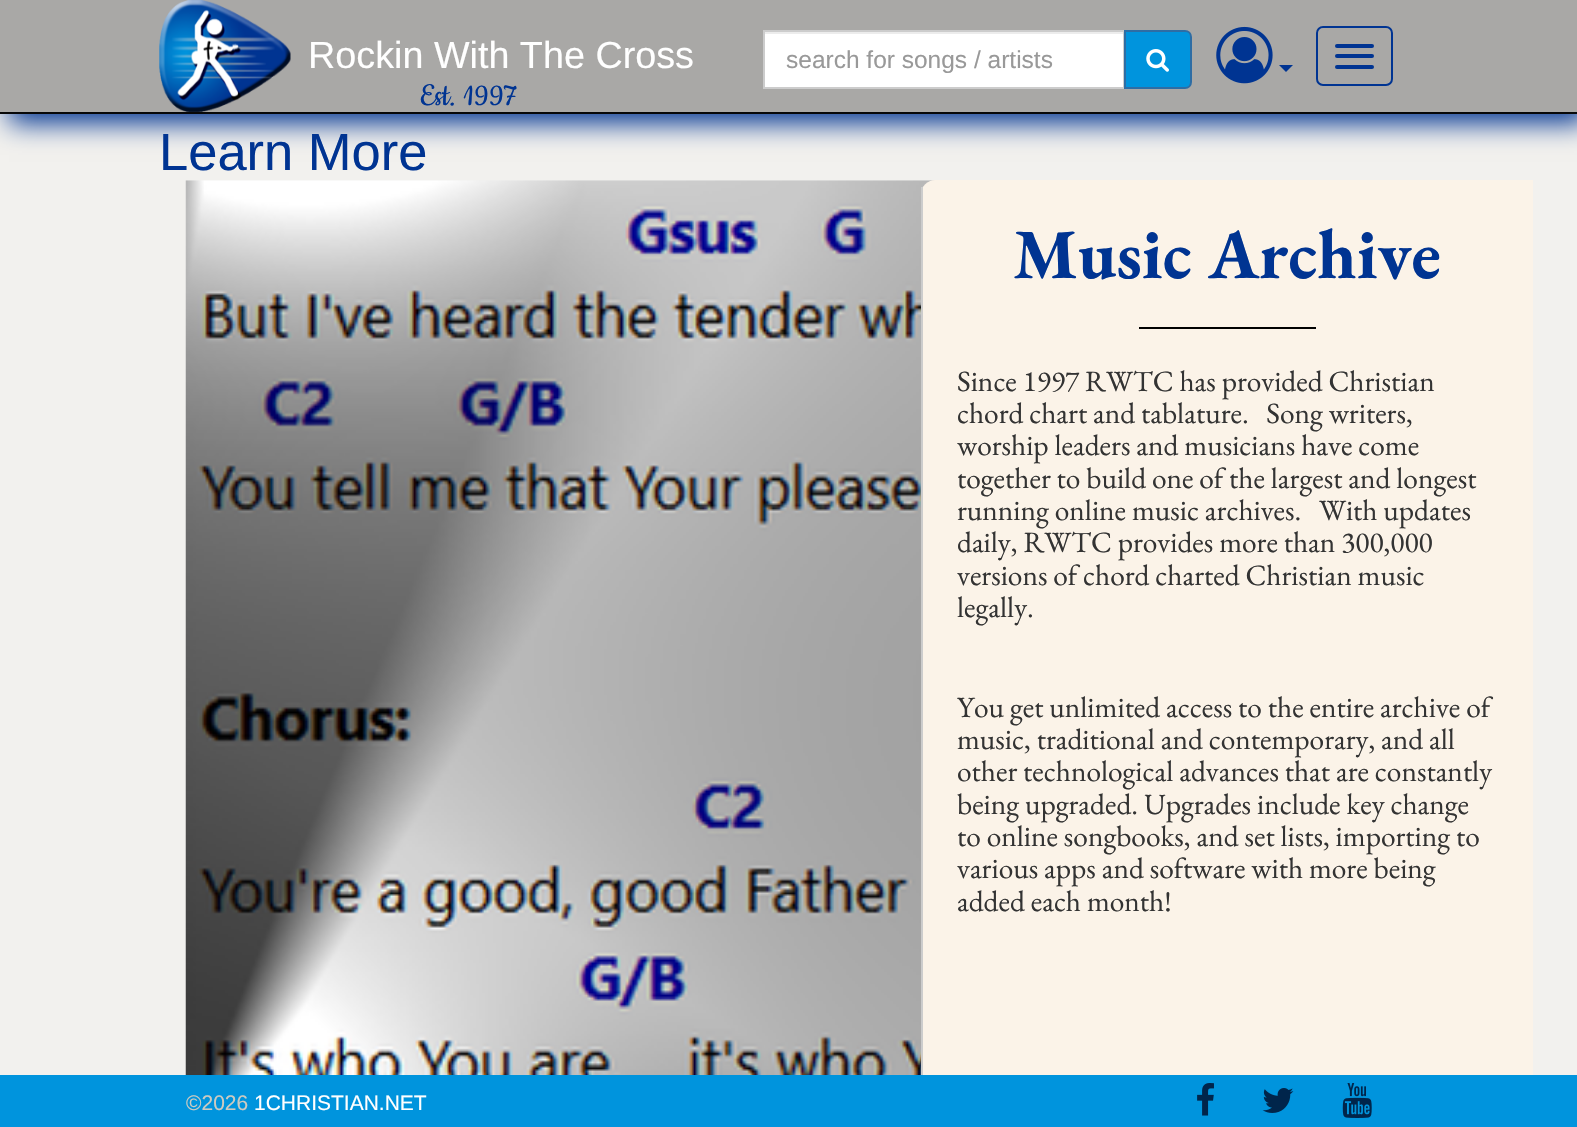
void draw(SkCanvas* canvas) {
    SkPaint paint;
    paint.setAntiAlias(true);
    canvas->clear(0xFFF2F1EE);
    paint.setColor(0xFF003492);
    paint.setMaskFilter(SkMaskFilter::MakeBlur(kNormal_SkBlurStyle, 13));
    canvas->drawRect(SkRect::MakeXYWH(9, 9, 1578, 114), paint);
    paint.setMaskFilter(nullptr);
    paint.setColor(0xFF080808);
    canvas->drawRect(SkRect::MakeXYWH(0, 112, 1577, 2), paint);
    paint.setColor(0xFFA9A8A6);
    canvas->drawRect(SkRect::MakeXYWH(0, 0, 1577, 112), paint);
    canvas->drawImageRect(SkImages::DeferredFromEncodedData(SkData::MakeFromFileName("img1.png")), SkRect::MakeXYWH(159, 0, 132, 112), SkSamplingOptions());
    SkFont font1(fontMgr->matchFamilyStyle("Liberation Sans", SkFontStyle::Normal()), 37.75f);
    font1.setSubpixel(true);
    paint.setColor(0xFFFFFFFF);
    canvas->drawString("Rockin With The Cross", 308, 68, font1, paint);
    SkFont font2(fontMgr->matchFamilyStyle("Cookie", SkFontStyle::Normal()), 35);
    font2.setSubpixel(true);
    paint.setColor(0xFF003492);
    canvas->drawString("Est. 1997", 420, 105, font2, paint);
    paint.setColor(0xFFFFFFFF);
    canvas->drawRect(SkRect::MakeXYWH(765, 34, 358, 53), paint);
    paint.setColor(0xFFECECEC);
    canvas->drawRect(SkRect::MakeXYWH(765, 32, 359, 2), paint);
    paint.setStyle(SkPaint::kStroke_Style);
    paint.setStrokeWidth(2);
    paint.setColor(0xFFCCCCCC);
    canvas->drawRect(SkRect::MakeXYWH(764, 31, 360, 57), paint);
    SkFont font3(fontMgr->matchFamilyStyle("Liberation Sans", SkFontStyle::Normal()), 24.5f);
    font3.setSubpixel(true);
    paint.setStyle(SkPaint::kFill_Style);
    paint.setColor(0xFF999999);
    canvas->drawString("search for songs / artists", 786, 68, font3, paint);
    paint.setColor(0xFF0094DD);
    canvas->drawPath(SkPathBuilder().moveTo(1125, 31).lineTo(1185, 31).cubicTo(1188.5f, 31, 1191, 33.5f, 1191, 37).lineTo(1191, 82).cubicTo(1191, 85.5f, 1188.5f, 88, 1185, 88).lineTo(1125, 88).close().detach(), paint);
    paint.setStyle(SkPaint::kStroke_Style);
    paint.setColor(0xFF2E6DA4);
    canvas->drawPath(SkPathBuilder().moveTo(1125, 31).lineTo(1185, 31).cubicTo(1188.5f, 31, 1191, 33.5f, 1191, 37).lineTo(1191, 82).cubicTo(1191, 85.5f, 1188.5f, 88, 1185, 88).lineTo(1125, 88).close().detach(), paint);
    canvas->drawImageRect(SkImages::DeferredFromEncodedData(SkData::MakeFromFileName("img2.png")), SkRect::MakeXYWH(1146, 49, 23, 23), SkSamplingOptions());
    canvas->drawImageRect(SkImages::DeferredFromEncodedData(SkData::MakeFromFileName("img3.png")), SkRect::MakeXYWH(1216, 26, 57, 58), SkSamplingOptions());
    paint.setStyle(SkPaint::kFill_Style);
    paint.setColor(0xFF003492);
    canvas->drawPath(SkPathBuilder().moveTo(1279, 65).lineTo(1293, 65).lineTo(1286, 72).close().detach(), paint);
    paint.setStyle(SkPaint::kStroke_Style);
    canvas->drawRoundRect(SkRect::MakeXYWH(1317, 27, 75, 58), 6, 6, paint);
    paint.setStyle(SkPaint::kFill_Style);
    canvas->drawRoundRect(SkRect::MakeXYWH(1335, 44, 39, 4), 2, 2, paint);
    canvas->drawRoundRect(SkRect::MakeXYWH(1335, 54, 39, 4), 2, 2, paint);
    canvas->drawRoundRect(SkRect::MakeXYWH(1335, 65, 39, 4), 2, 2, paint);
    SkFont font4(fontMgr->matchFamilyStyle("Liberation Sans", SkFontStyle::Normal()), 52.5f);
    font4.setSubpixel(true);
    canvas->drawString("Learn More", 159, 170, font4, paint);
    canvas->drawImageRect(SkImages::DeferredFromEncodedData(SkData::MakeFromFileName("img4.png")), SkRect::MakeXYWH(185, 180, 750, 895), SkSamplingOptions());
    paint.setColor(0xFFFBF3E8);
    canvas->drawPath(SkPathBuilder().moveTo(935, 180).lineTo(1533, 180).lineTo(1533, 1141).lineTo(935, 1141).cubicTo(927.5f, 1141, 921, 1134.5f, 921, 1127).lineTo(921, 194).cubicTo(921, 186.5f, 927.5f, 180, 935, 180).close().detach(), paint);
    paint.setColor(0xFFCCCCCC);
    canvas->drawRect(SkRect::MakeXYWH(921, 187, 2, 888), paint);
    SkFont font5(fontMgr->matchFamilyStyle("EB Garamond", SkFontStyle::Bold()), 70.5f);
    font5.setSubpixel(true);
    paint.setColor(0xFF003492);
    canvas->drawString("Music Archive", 1013, 278, font5, paint);
    paint.setColor(0xFF000000);
    canvas->drawRect(SkRect::MakeXYWH(1139, 327, 177, 2), paint);
    SkFont font6(fontMgr->matchFamilyStyle("EB Garamond", SkFontStyle::Normal()), 29.4f);
    font6.setSubpixel(true);
    paint.setColor(0xFF333333);
    canvas->drawString("Since 1997 RWTC has provided Christian", 957, 391, font6, paint);
    canvas->drawString("chord chart and tablature.   Song writers,", 957, 423, font6, paint);
    canvas->drawString("worship leaders and musicians have come", 957, 455, font6, paint);
    canvas->drawString("together to build one of the largest and longest", 957, 488, font6, paint);
    canvas->drawString("running online music archives.   With updates", 957, 520, font6, paint);
    canvas->drawString("daily, RWTC provides more than 300,000", 957, 552, font6, paint);
    canvas->drawString("versions of chord charted Christian music", 957, 585, font6, paint);
    canvas->drawString("legally.", 957, 617, font6, paint);
    canvas->drawString("You get unlimited access to the entire archive of", 957, 717, font6, paint);
    canvas->drawString("music, traditional and contemporary, and all", 957, 749, font6, paint);
    canvas->drawString("other technological advances that are constantly", 957, 781, font6, paint);
    canvas->drawString("being upgraded. Upgrades include key change", 957, 814, font6, paint);
    canvas->drawString("to online songbooks, and set lists, importing to", 957, 846, font6, paint);
    canvas->drawString("various apps and software with more being", 957, 878, font6, paint);
    canvas->drawString("added each month!", 957, 911, font6, paint);
    paint.setColor(0xFF0094DD);
    canvas->drawRect(SkRect::MakeXYWH(0, 1075, 1577, 52), paint);
    SkFont font7(fontMgr->matchFamilyStyle("Liberation Sans", SkFontStyle::Normal()), 21);
    font7.setSubpixel(true);
    paint.setColor(0xFFCDCBC1);
    canvas->drawString("©2026", 186, 1110, font7, paint);
    paint.setColor(0xFFFFFFFF);
    canvas->drawString("1CHRISTIAN.NET", 254, 1110, font7, paint);
    canvas->drawImageRect(SkImages::DeferredFromEncodedData(SkData::MakeFromFileName("img5.png")), SkRect::MakeXYWH(1197, 1083, 17, 33), SkSamplingOptions());
    canvas->drawImageRect(SkImages::DeferredFromEncodedData(SkData::MakeFromFileName("img6.png")), SkRect::MakeXYWH(1262, 1088, 32, 25), SkSamplingOptions());
    canvas->drawImageRect(SkImages::DeferredFromEncodedData(SkData::MakeFromFileName("img7.png")), SkRect::MakeXYWH(1342, 1083, 30, 35), SkSamplingOptions());
}
